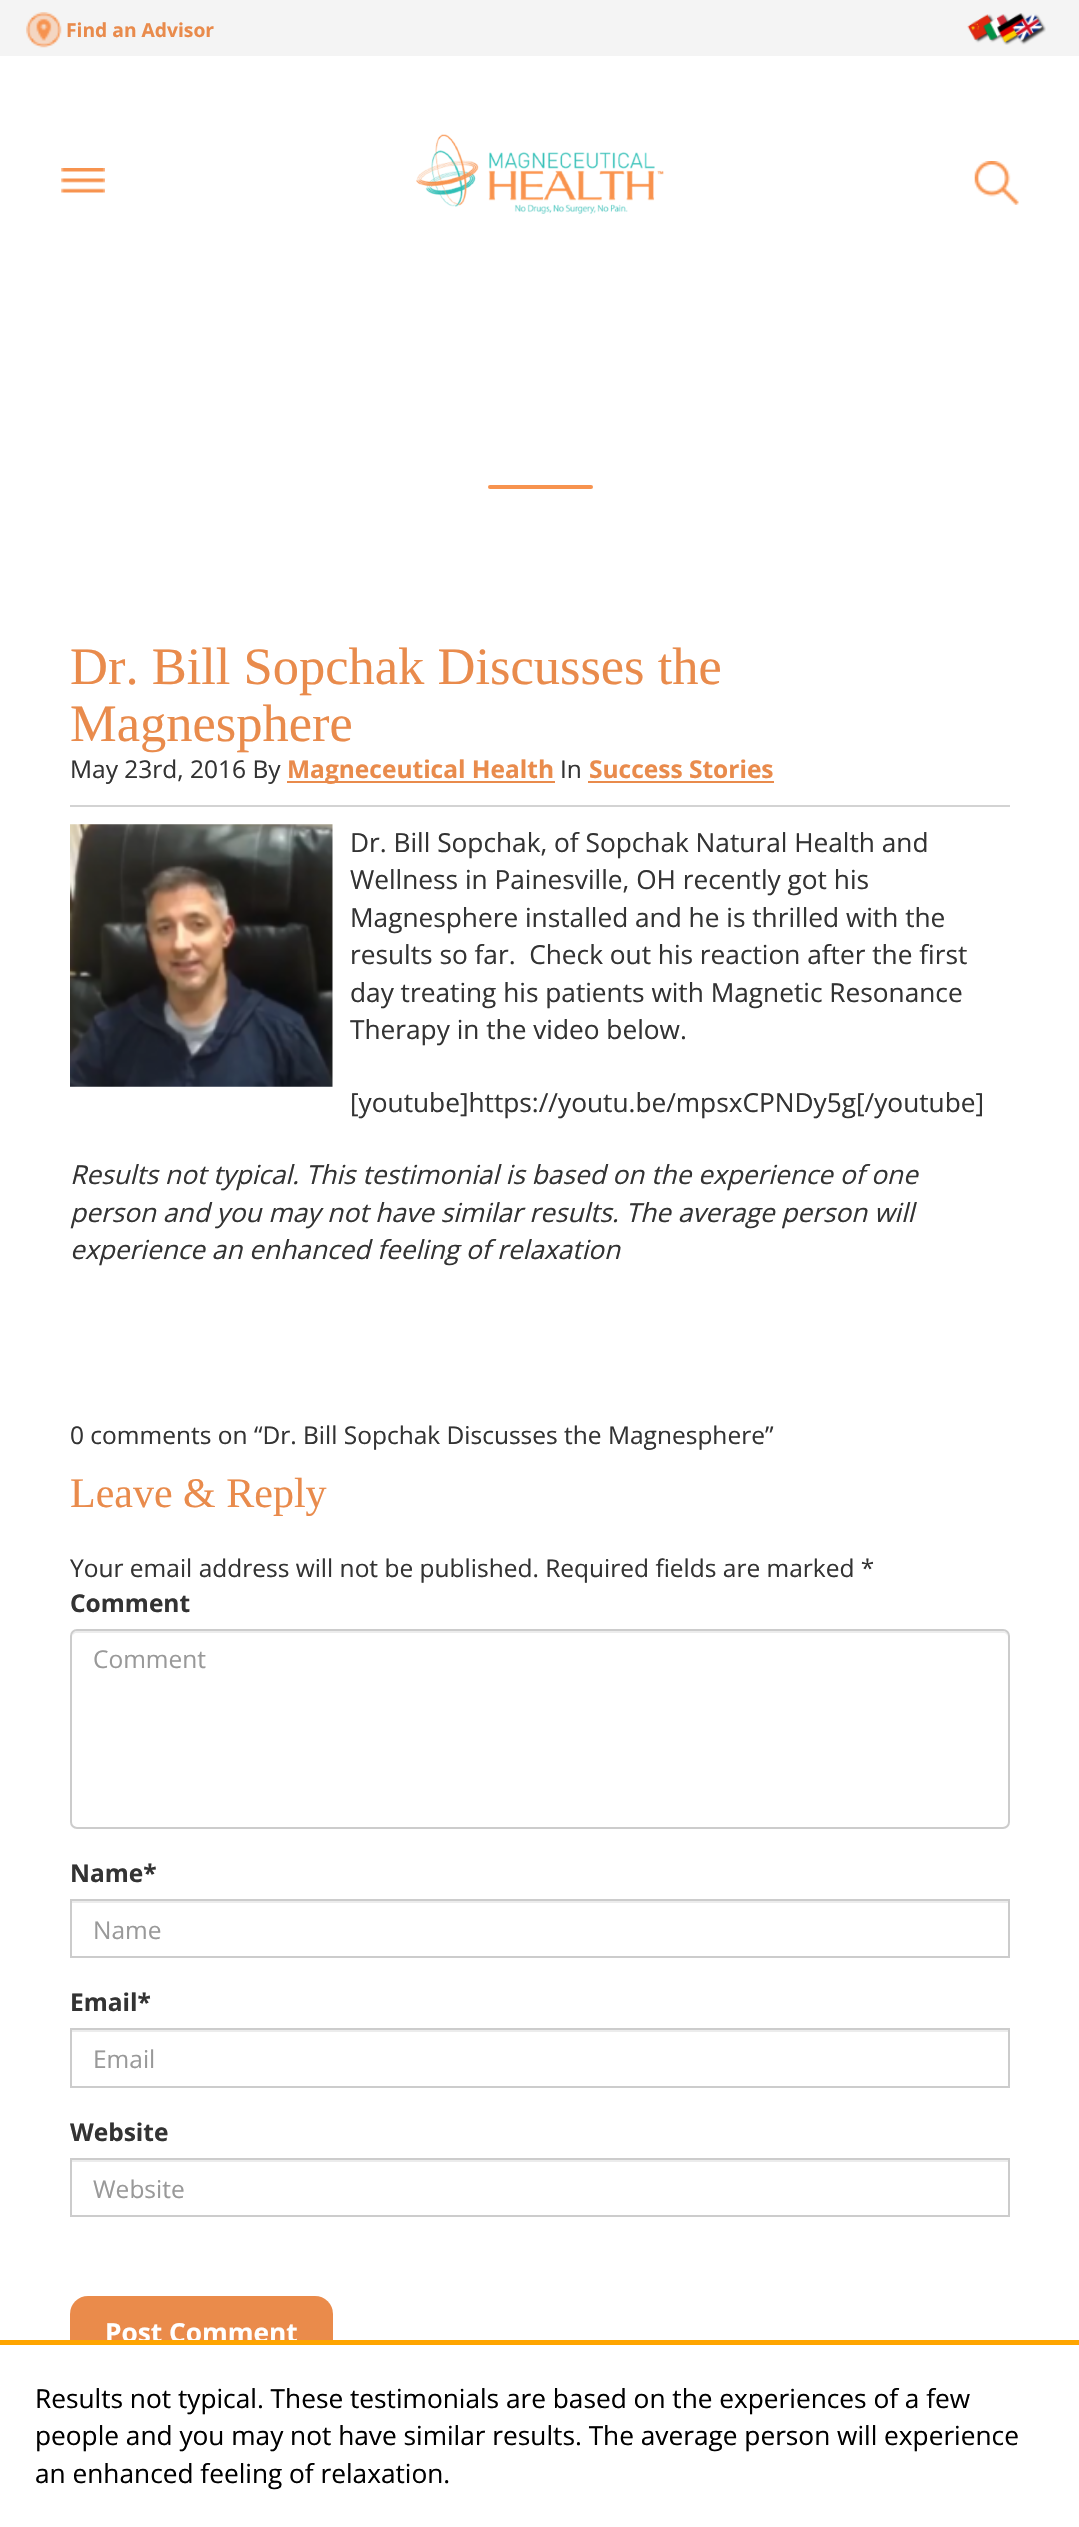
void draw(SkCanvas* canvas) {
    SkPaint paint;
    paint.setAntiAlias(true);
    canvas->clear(0xFFFFFFFF);
    paint.setColor(0xFFF4F4F4);
    canvas->drawRect(SkRect::MakeXYWH(0, 0, 1079, 56), paint);
    canvas->drawImageRect(SkImages::DeferredFromEncodedData(SkData::MakeFromFileName("img1.png")), SkRect::MakeXYWH(26, 12, 36, 36), SkSamplingOptions());
    SkFont font1(fontMgr->matchFamilyStyle("Open Sans", SkFontStyle::Bold()), 19.25f);
    font1.setSubpixel(true);
    paint.setColor(0xFFE98B4C);
    canvas->drawString("Find an Advisor", 66, 37, font1, paint);
    canvas->drawImageRect(SkImages::DeferredFromEncodedData(SkData::MakeFromFileName("img2.png")), SkRect::MakeXYWH(967, 13, 79, 32), SkSamplingOptions());
    canvas->drawImageRect(SkImages::DeferredFromEncodedData(SkData::MakeFromFileName("img3.png")), SkRect::MakeXYWH(61, 168, 44, 25), SkSamplingOptions());
    canvas->drawImageRect(SkImages::DeferredFromEncodedData(SkData::MakeFromFileName("img4.png")), SkRect::MakeXYWH(416, 134, 248, 80), SkSamplingOptions());
    canvas->drawImageRect(SkImages::DeferredFromEncodedData(SkData::MakeFromFileName("img5.png")), SkRect::MakeXYWH(974, 161, 45, 44), SkSamplingOptions());
    paint.setColor(0xFFF7934F);
    canvas->drawRoundRect(SkRect::MakeXYWH(488, 485, 105, 4), 2, 2, paint);
    SkFont font2(fontMgr->matchFamilyStyle("Liberation Serif", SkFontStyle::Normal()), 52.5f);
    font2.setSubpixel(true);
    paint.setColor(0xFFE98B4C);
    canvas->drawString("Dr. Bill Sopchak Discusses the", 70, 684, font2, paint);
    canvas->drawString("Magnesphere", 70, 741, font2, paint);
    paint.setColor(0xFFD3D3D3);
    canvas->drawRect(SkRect::MakeXYWH(70, 805, 940, 2), paint);
    SkFont font3(fontMgr->matchFamilyStyle("Open Sans", SkFontStyle::Normal()), 24.5f);
    font3.setSubpixel(true);
    paint.setColor(0xFF333333);
    canvas->drawString("May 23rd, 2016 By", 70, 778, font3, paint);
    paint.setColor(0xFFE98B4C);
    canvas->drawRect(SkRect::MakeXYWH(287, 781, 268, 2), paint);
    SkFont font4(fontMgr->matchFamilyStyle("Open Sans", SkFontStyle::Bold()), 24.5f);
    font4.setSubpixel(true);
    canvas->drawString("Magneceutical Health", 287, 778, font4, paint);
    paint.setColor(0xFF333333);
    canvas->drawString("In", 560, 778, font3, paint);
    paint.setColor(0xFFE98B4C);
    canvas->drawString("Success Stories", 589, 778, font4, paint);
    canvas->drawRect(SkRect::MakeXYWH(588, 781, 186, 2), paint);
    canvas->drawImageRect(SkImages::DeferredFromEncodedData(SkData::MakeFromFileName("img6.png")), SkRect::MakeXYWH(70, 824, 263, 263), SkSamplingOptions());
    SkFont font5(fontMgr->matchFamilyStyle("Open Sans", SkFontStyle::Normal()), 26.25f);
    font5.setSubpixel(true);
    paint.setColor(0xFF333333);
    canvas->drawString("Dr. Bill Sopchak, of Sopchak Natural Health and", 350, 852, font5, paint);
    canvas->drawString("Wellness in Painesville, OH recently got his", 350, 889, font5, paint);
    canvas->drawString("Magnesphere installed and he is thrilled with the", 350, 927, font5, paint);
    canvas->drawString("results so far.  Check out his reaction after the first", 350, 964, font5, paint);
    canvas->drawString("day treating his patients with Magnetic Resonance", 350, 1002, font5, paint);
    canvas->drawString("Therapy in the video below.", 350, 1039, font5, paint);
    canvas->drawString("[youtube]https://youtu.be/mpsxCPNDy5g[/youtube]", 350, 1112, font5, paint);
    SkFont font6(fontMgr->matchFamilyStyle("Open Sans", SkFontStyle::Italic()), 26.25f);
    font6.setSubpixel(true);
    canvas->drawString("Results not typical. This testimonial is based on the experience of one", 70, 1184, font6, paint);
    canvas->drawString("person and you may not have similar results. The average person will", 70, 1222, font6, paint);
    canvas->drawString("experience an enhanced feeling of relaxation", 70, 1259, font6, paint);
    canvas->drawString("0 comments on “Dr. Bill Sopchak Discusses the Magnesphere”", 70, 1444, font3, paint);
    SkFont font7(fontMgr->matchFamilyStyle("Liberation Serif", SkFontStyle::Normal()), 42);
    font7.setSubpixel(true);
    paint.setColor(0xFFE98B4C);
    canvas->drawString("Leave & Reply", 70, 1507, font7, paint);
    paint.setColor(0xFF333333);
    canvas->drawString("Your email address will not be published. Required fields are marked *", 70, 1577, font3, paint);
    canvas->drawString("Comment", 70, 1612, font4, paint);
    paint.setColor(0xFFECECEC);
    canvas->drawPath(SkPathBuilder().moveTo(77, 1633).lineTo(1003, 1633).cubicTo(1006, 1633, 1008, 1635, 1008, 1638).cubicTo(1008, 1635, 1007, 1631, 1003, 1631).lineTo(77, 1631).cubicTo(73, 1631, 72, 1635, 72, 1638).cubicTo(72, 1635, 74, 1633, 77, 1633).close().detach(), paint);
    paint.setStyle(SkPaint::kStroke_Style);
    paint.setStrokeWidth(2);
    paint.setColor(0xFFCCCCCC);
    canvas->drawRoundRect(SkRect::MakeXYWH(71, 1630, 938, 198), 6, 6, paint);
    paint.setStyle(SkPaint::kFill_Style);
    paint.setColor(0xFF999999);
    canvas->drawString("Comment", 93, 1668, font3, paint);
    paint.setColor(0xFF333333);
    canvas->drawString("Name*", 70, 1882, font4, paint);
    paint.setColor(0xFFECECEC);
    canvas->drawRect(SkRect::MakeXYWH(72, 1901, 936, 2), paint);
    paint.setStyle(SkPaint::kStroke_Style);
    paint.setColor(0xFFCCCCCC);
    canvas->drawRect(SkRect::MakeXYWH(71, 1900, 938, 57), paint);
    paint.setStyle(SkPaint::kFill_Style);
    paint.setColor(0xFF999999);
    canvas->drawString("Name", 93, 1939, font3, paint);
    paint.setColor(0xFF333333);
    canvas->drawString("Email*", 70, 2011, font4, paint);
    paint.setColor(0xFFECECEC);
    canvas->drawRect(SkRect::MakeXYWH(72, 2030, 936, 2), paint);
    paint.setStyle(SkPaint::kStroke_Style);
    paint.setColor(0xFFCCCCCC);
    canvas->drawRect(SkRect::MakeXYWH(71, 2029, 938, 58), paint);
    paint.setStyle(SkPaint::kFill_Style);
    paint.setColor(0xFF999999);
    canvas->drawString("Email", 93, 2068, font3, paint);
    paint.setColor(0xFF333333);
    canvas->drawString("Website", 70, 2141, font4, paint);
    paint.setColor(0xFFECECEC);
    canvas->drawRect(SkRect::MakeXYWH(72, 2160, 936, 2), paint);
    paint.setStyle(SkPaint::kStroke_Style);
    paint.setColor(0xFFCCCCCC);
    canvas->drawRect(SkRect::MakeXYWH(71, 2159, 938, 57), paint);
    paint.setStyle(SkPaint::kFill_Style);
    paint.setColor(0xFF999999);
    canvas->drawString("Website", 93, 2198, font3, paint);
    paint.setColor(0xFFEA8B4B);
    canvas->drawRoundRect(SkRect::MakeXYWH(70, 2296, 263, 74), 18, 18, paint);
    SkFont font8(fontMgr->matchFamilyStyle("Open Sans", SkFontStyle::Bold()), 26.25f);
    font8.setSubpixel(true);
    paint.setColor(0xFFFFFFFF);
    canvas->drawString("Post Comment", 105, 2342, font8, paint);
    canvas->drawRect(SkRect::MakeXYWH(70, 2345, 263, 25), paint);
    paint.setColor(0xFFFFA500);
    canvas->drawRect(SkRect::MakeXYWH(0, 2340, 1079, 5), paint);
    paint.setColor(0xFF000000);
    canvas->drawString("Results not typical. These testimonials are based on the experiences of a few", 35, 2408, font5, paint);
    canvas->drawString("people and you may not have similar results. The average person will experience", 35, 2445, font5, paint);
    canvas->drawString("an enhanced feeling of relaxation.", 35, 2483, font5, paint);
}
